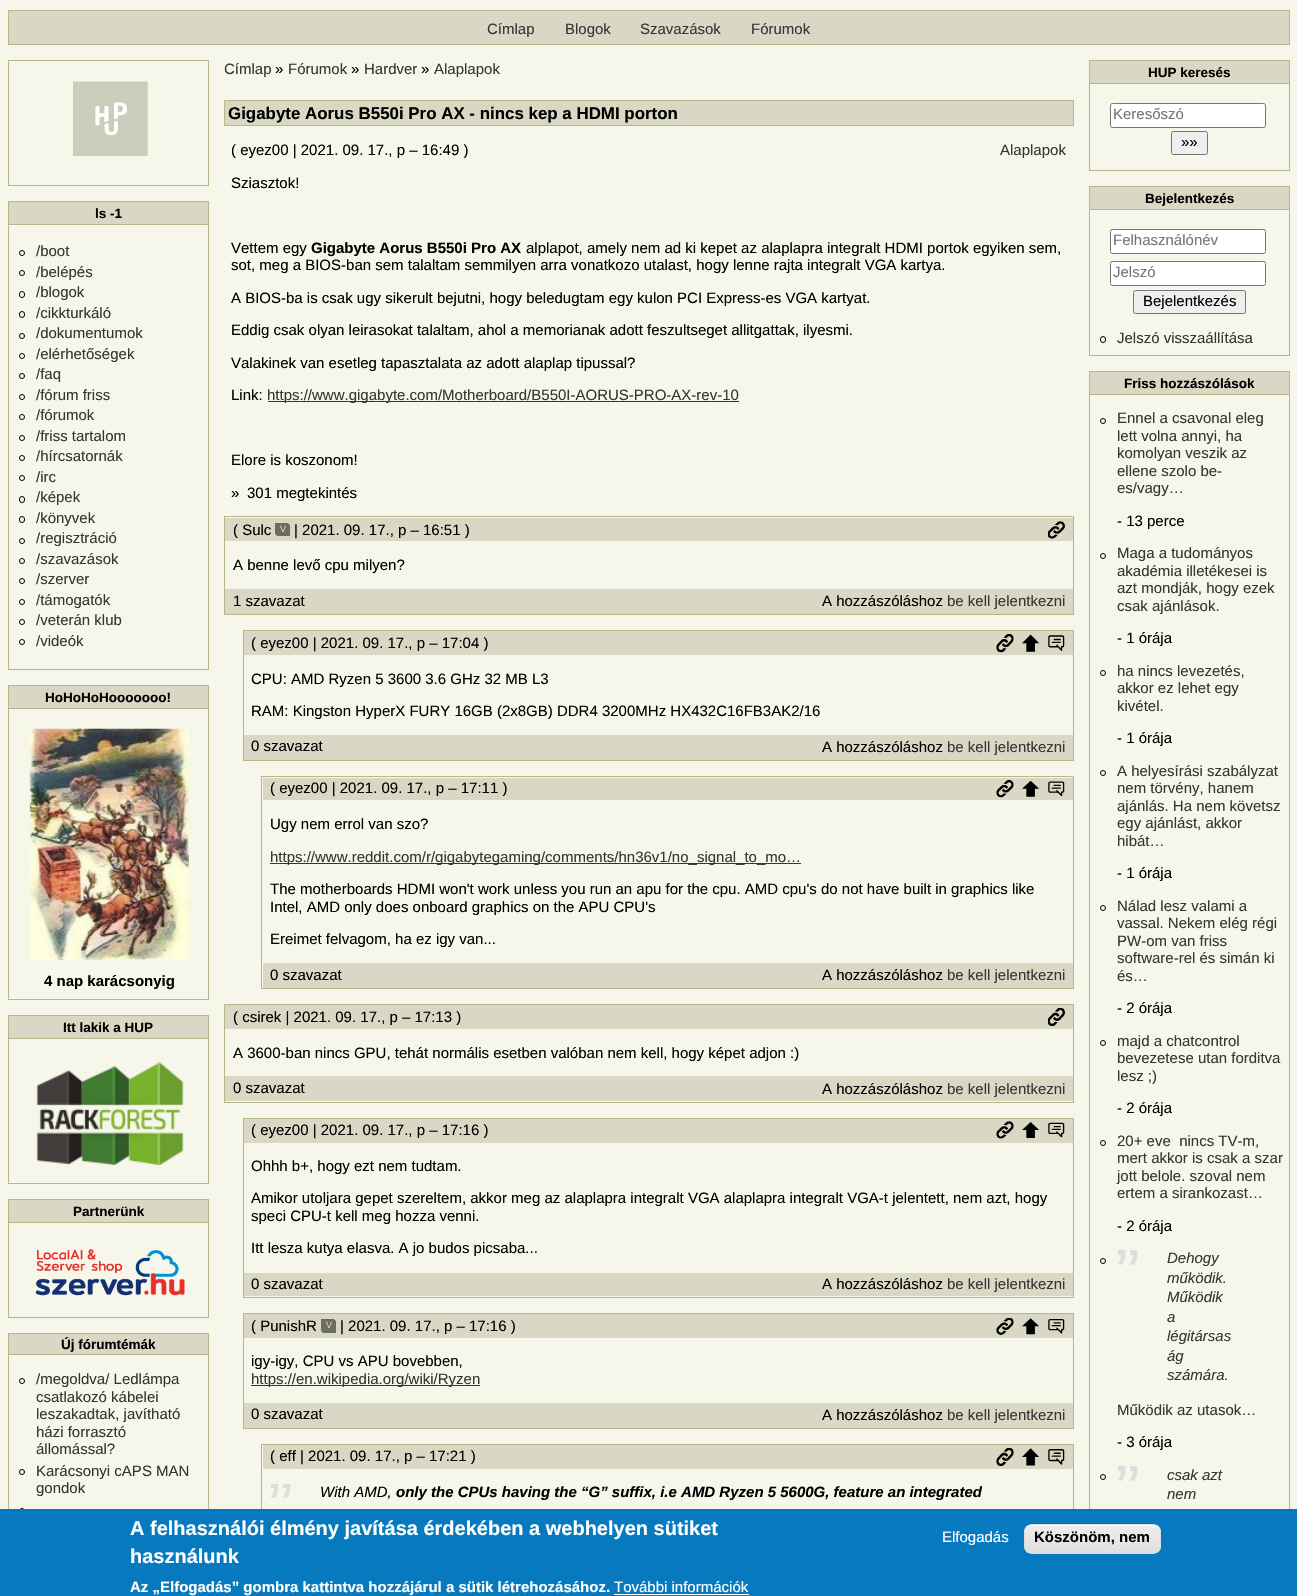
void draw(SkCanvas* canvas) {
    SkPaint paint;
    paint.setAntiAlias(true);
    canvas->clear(0xFFF6F6EB);
    paint.setColor(0xFFD8D8C4);
    canvas->drawRect(SkRect::MakeXYWH(8.5f, 10.5f, 1281, 34), paint);
    paint.setStyle(SkPaint::kStroke_Style);
    paint.setStrokeWidth(1);
    paint.setColor(0xFFB7B78B);
    canvas->drawRect(SkRect::MakeXYWH(8.5f, 10.5f, 1281, 34), paint);
    SkFont font1(fontMgr->matchFamilyStyle("Liberation Sans", SkFontStyle::Normal()), 15);
    font1.setSubpixel(true);
    paint.setStyle(SkPaint::kFill_Style);
    paint.setColor(0xFF363636);
    canvas->drawString("Címlap", 487, 34, font1, paint);
    canvas->drawString("Blogok", 565, 34, font1, paint);
    canvas->drawString("Szavazások", 640, 34, font1, paint);
    canvas->drawString("Fórumok", 751, 34, font1, paint);
    canvas->drawString("Címlap", 224, 74, font1, paint);
    paint.setColor(0xFF000000);
    canvas->drawString("»", 275, 74, font1, paint);
    paint.setColor(0xFF363636);
    canvas->drawString("Fórumok", 288, 74, font1, paint);
    paint.setColor(0xFF000000);
    canvas->drawString("»", 351, 74, font1, paint);
    paint.setColor(0xFF363636);
    canvas->drawString("Hardver", 364, 74, font1, paint);
    paint.setColor(0xFF000000);
    canvas->drawString("»", 421, 74, font1, paint);
    paint.setColor(0xFF363636);
    canvas->drawString("Alaplapok", 434, 74, font1, paint);
    paint.setColor(0xFFD8D8C4);
    canvas->drawRect(SkRect::MakeXYWH(224.5f, 100.5f, 849, 25), paint);
    paint.setStyle(SkPaint::kStroke_Style);
    paint.setColor(0xFFB7B78B);
    canvas->drawRect(SkRect::MakeXYWH(224.5f, 100.5f, 849, 25), paint);
    SkFont font2(fontMgr->matchFamilyStyle("Liberation Sans", SkFontStyle::Bold()), 16.9f);
    font2.setSubpixel(true);
    paint.setStyle(SkPaint::kFill_Style);
    paint.setColor(0xFF000000);
    canvas->drawString("Gigabyte Aorus B550i Pro AX - nincs kep a HDMI porton", 228, 119, font2, paint);
    paint.setColor(0xFF363636);
    canvas->drawString("Alaplapok", 1000, 155, font1, paint);
    paint.setColor(0xFF000000);
    canvas->drawString("Sziasztok!", 231, 188, font1, paint);
    canvas->drawString("Vettem egy", 231, 253, font1, paint);
    SkFont font3(fontMgr->matchFamilyStyle("Liberation Sans", SkFontStyle::Bold()), 15);
    font3.setSubpixel(true);
    canvas->drawString("Gigabyte Aorus B550i Pro AX", 311, 253, font3, paint);
    canvas->drawString("alplapot, amely nem ad ki kepet az alaplapra integralt HDMI portok egyiken sem,", 526, 253, font1, paint);
    canvas->drawString("sot, meg a BIOS-ban sem talaltam semmilyen arra vonatkozo utalast, hogy lenne rajta integralt VGA kartya.", 231, 270, font1, paint);
    canvas->drawString("A BIOS-ba is csak ugy sikerult bejutni, hogy beledugtam egy kulon PCI Express-es VGA kartyat.", 231, 303, font1, paint);
    canvas->drawString("Eddig csak olyan leirasokat talaltam, ahol a memorianak adott feszultseget allitgattak, ilyesmi.", 231, 335, font1, paint);
    canvas->drawString("Valakinek van esetleg tapasztalata az adott alaplap tipussal?", 231, 368, font1, paint);
    canvas->drawString("Link:", 231, 400, font1, paint);
    paint.setColor(0xFF363636);
    canvas->drawRect(SkRect::MakeXYWH(268, 401, 471, 1), paint);
    canvas->drawString("https://www.gigabyte.com/Motherboard/B550I-AORUS-PRO-AX-rev-10", 267, 400, font1, paint);
    paint.setColor(0xFF000000);
    canvas->drawString("Elore is koszonom!", 231, 465, font1, paint);
    canvas->drawString("»", 231, 498, font1, paint);
    canvas->drawString("301 megtekintés", 247, 498, font1, paint);
    canvas->drawString("( eyez00 | 2021. 09. 17., p – 16:49 )", 231, 155, font1, paint);
    paint.setStyle(SkPaint::kStroke_Style);
    paint.setColor(0xFFB7B78B);
    canvas->drawRect(SkRect::MakeXYWH(224.5f, 516.5f, 849, 98), paint);
    paint.setStyle(SkPaint::kFill_Style);
    paint.setColor(0xFFD8D8C4);
    canvas->drawRect(SkRect::MakeXYWH(225, 518, 848, 23), paint);
    paint.setColor(0xFF000000);
    canvas->drawString("( Sulc", 233, 535, font1, paint);
    paint.setColor(0xFF6C6C62);
    canvas->drawPath(SkPathBuilder().moveTo(275, 523).lineTo(287, 523).cubicTo(288.5f, 523, 290, 524.5f, 290, 526).lineTo(290, 536).lineTo(278, 536).cubicTo(276.5f, 536, 275, 534.5f, 275, 533).close().detach(), paint);
    SkFont font4(fontMgr->matchFamilyStyle("Liberation Sans", SkFontStyle::Normal()), 9);
    font4.setSubpixel(true);
    paint.setColor(0xFFD8D8C4);
    canvas->drawString("V", 280, 532, font4, paint);
    paint.setColor(0xFF000000);
    canvas->drawString("| 2021. 09. 17., p – 16:51 )", 294, 535, font1, paint);
    canvas->drawImageRect(SkImages::DeferredFromEncodedData(SkData::MakeFromFileName("img1.png")), SkRect::MakeXYWH(1048, 521, 17, 18), SkSamplingOptions());
    canvas->drawString("A benne levő cpu milyen?", 233, 570, font1, paint);
    paint.setColor(0xFFD8D8C4);
    canvas->drawRect(SkRect::MakeXYWH(225, 589, 848, 25), paint);
    paint.setColor(0xFF000000);
    canvas->drawString("1 szavazat", 233, 606, font1, paint);
    canvas->drawString("A hozzászóláshoz", 822, 606, font1, paint);
    paint.setColor(0xFF363636);
    canvas->drawString("be kell jelentkezni", 947, 606, font1, paint);
    paint.setStyle(SkPaint::kStroke_Style);
    paint.setColor(0xFFB7B78B);
    canvas->drawRect(SkRect::MakeXYWH(243.5f, 630.5f, 830, 130), paint);
    paint.setStyle(SkPaint::kFill_Style);
    paint.setColor(0xFFD8D8C4);
    canvas->drawRect(SkRect::MakeXYWH(244, 631, 829, 24), paint);
    paint.setColor(0xFF000000);
    canvas->drawString("( eyez00 | 2021. 09. 17., p – 17:04 )", 251, 648, font1, paint);
    canvas->drawImageRect(SkImages::DeferredFromEncodedData(SkData::MakeFromFileName("img2.png")), SkRect::MakeXYWH(996, 634, 18, 19), SkSamplingOptions());
    canvas->drawImageRect(SkImages::DeferredFromEncodedData(SkData::MakeFromFileName("img3.png")), SkRect::MakeXYWH(1022, 634, 17, 18), SkSamplingOptions());
    canvas->drawImageRect(SkImages::DeferredFromEncodedData(SkData::MakeFromFileName("img4.png")), SkRect::MakeXYWH(1048, 635, 17, 16), SkSamplingOptions());
    canvas->drawString("CPU: AMD Ryzen 5 3600 3.6 GHz 32 MB L3", 251, 684, font1, paint);
    canvas->drawString("RAM: Kingston HyperX FURY 16GB (2x8GB) DDR4 3200MHz HX432C16FB3AK2/16", 251, 716, font1, paint);
    paint.setColor(0xFFD8D8C4);
    canvas->drawRect(SkRect::MakeXYWH(244, 735, 829, 25), paint);
    paint.setColor(0xFF000000);
    canvas->drawString("0 szavazat", 251, 751, font1, paint);
    canvas->drawString("A hozzászóláshoz", 822, 752, font1, paint);
    paint.setColor(0xFF363636);
    canvas->drawString("be kell jelentkezni", 947, 752, font1, paint);
    paint.setStyle(SkPaint::kStroke_Style);
    paint.setColor(0xFFB7B78B);
    canvas->drawRect(SkRect::MakeXYWH(261.5f, 776.5f, 812, 212), paint);
    paint.setStyle(SkPaint::kFill_Style);
    paint.setColor(0xFFD8D8C4);
    canvas->drawRect(SkRect::MakeXYWH(263, 778, 810, 22), paint);
    paint.setColor(0xFF000000);
    canvas->drawString("( eyez00 | 2021. 09. 17., p – 17:11 )", 270, 793, font1, paint);
    canvas->drawImageRect(SkImages::DeferredFromEncodedData(SkData::MakeFromFileName("img5.png")), SkRect::MakeXYWH(996, 780, 18, 18), SkSamplingOptions());
    canvas->drawImageRect(SkImages::DeferredFromEncodedData(SkData::MakeFromFileName("img6.png")), SkRect::MakeXYWH(1022, 780, 17, 17), SkSamplingOptions());
    canvas->drawImageRect(SkImages::DeferredFromEncodedData(SkData::MakeFromFileName("img7.png")), SkRect::MakeXYWH(1048, 781, 17, 15), SkSamplingOptions());
    canvas->drawString("Ugy nem errol van szo?", 270, 829, font1, paint);
    paint.setColor(0xFF363636);
    canvas->drawRect(SkRect::MakeXYWH(270, 863, 531, 1), paint);
    canvas->drawString("https://www.reddit.com/r/gigabytegaming/comments/hn36v1/no_signal_to_mo…", 270, 862, font1, paint);
    paint.setColor(0xFF000000);
    canvas->drawString("The motherboards HDMI won't work unless you run an apu for the cpu. AMD cpu's do not have built in graphics like", 270, 894, font1, paint);
    canvas->drawString("Intel, AMD only does onboard graphics on the APU CPU's", 270, 912, font1, paint);
    canvas->drawString("Ereimet felvagom, ha ez igy van...", 270, 944, font1, paint);
    paint.setColor(0xFFD8D8C4);
    canvas->drawRect(SkRect::MakeXYWH(263, 963, 810, 25), paint);
    paint.setColor(0xFF000000);
    canvas->drawString("0 szavazat", 270, 980, font1, paint);
    canvas->drawString("A hozzászóláshoz", 822, 980, font1, paint);
    paint.setColor(0xFF363636);
    canvas->drawString("be kell jelentkezni", 947, 980, font1, paint);
    paint.setStyle(SkPaint::kStroke_Style);
    paint.setColor(0xFFB7B78B);
    canvas->drawRect(SkRect::MakeXYWH(224.5f, 1004.5f, 849, 98), paint);
    paint.setStyle(SkPaint::kFill_Style);
    paint.setColor(0xFFD8D8C4);
    canvas->drawRect(SkRect::MakeXYWH(225, 1005, 848, 24), paint);
    paint.setColor(0xFF000000);
    canvas->drawString("( csirek | 2021. 09. 17., p – 17:13 )", 233, 1022, font1, paint);
    canvas->drawImageRect(SkImages::DeferredFromEncodedData(SkData::MakeFromFileName("img8.png")), SkRect::MakeXYWH(1048, 1008, 17, 18), SkSamplingOptions());
    canvas->drawString("A 3600-ban nincs GPU, tehát normális esetben valóban nem kell, hogy képet adjon :)", 233, 1058, font1, paint);
    paint.setColor(0xFFD8D8C4);
    canvas->drawRect(SkRect::MakeXYWH(225, 1076, 848, 25), paint);
    paint.setColor(0xFF000000);
    canvas->drawString("0 szavazat", 233, 1093, font1, paint);
    canvas->drawString("A hozzászóláshoz", 822, 1094, font1, paint);
    paint.setColor(0xFF363636);
    canvas->drawString("be kell jelentkezni", 947, 1094, font1, paint);
    paint.setStyle(SkPaint::kStroke_Style);
    paint.setColor(0xFFB7B78B);
    canvas->drawRect(SkRect::MakeXYWH(243.5f, 1118.5f, 830, 179), paint);
    paint.setStyle(SkPaint::kFill_Style);
    paint.setColor(0xFFD8D8C4);
    canvas->drawRect(SkRect::MakeXYWH(244, 1119, 829, 24), paint);
    paint.setColor(0xFF000000);
    canvas->drawString("( eyez00 | 2021. 09. 17., p – 17:16 )", 251, 1135, font1, paint);
    canvas->drawImageRect(SkImages::DeferredFromEncodedData(SkData::MakeFromFileName("img9.png")), SkRect::MakeXYWH(996, 1121, 18, 18), SkSamplingOptions());
    canvas->drawImageRect(SkImages::DeferredFromEncodedData(SkData::MakeFromFileName("img10.png")), SkRect::MakeXYWH(1022, 1122, 17, 16), SkSamplingOptions());
    canvas->drawImageRect(SkImages::DeferredFromEncodedData(SkData::MakeFromFileName("img11.png")), SkRect::MakeXYWH(1048, 1122, 17, 16), SkSamplingOptions());
    canvas->drawString("Ohhh b+, hogy ezt nem tudtam.", 251, 1171, font1, paint);
    canvas->drawString("Amikor utoljara gepet szereltem, akkor meg az alaplapra integralt VGA alaplapra integralt VGA-t jelentett, nem azt, hogy", 251, 1203, font1, paint);
    canvas->drawString("speci CPU-t kell meg hozza venni.", 251, 1221, font1, paint);
    canvas->drawString("Itt lesza kutya elasva. A jo budos picsaba...", 251, 1253, font1, paint);
    paint.setColor(0xFFD8D8C4);
    canvas->drawRect(SkRect::MakeXYWH(244, 1273, 829, 23), paint);
    paint.setColor(0xFF000000);
    canvas->drawString("0 szavazat", 251, 1289, font1, paint);
    canvas->drawString("A hozzászóláshoz", 822, 1289, font1, paint);
    paint.setColor(0xFF363636);
    canvas->drawString("be kell jelentkezni", 947, 1289, font1, paint);
    paint.setStyle(SkPaint::kStroke_Style);
    paint.setColor(0xFFB7B78B);
    canvas->drawRect(SkRect::MakeXYWH(243.5f, 1313.5f, 830, 115), paint);
    paint.setStyle(SkPaint::kFill_Style);
    paint.setColor(0xFFD8D8C4);
    canvas->drawRect(SkRect::MakeXYWH(244, 1314, 829, 24), paint);
    paint.setColor(0xFF000000);
    canvas->drawString("( PunishR", 251, 1331, font1, paint);
    paint.setColor(0xFF6C6C62);
    canvas->drawPath(SkPathBuilder().moveTo(321, 1319).lineTo(333, 1319).cubicTo(334.5f, 1319, 336, 1320.5f, 336, 1322).lineTo(336, 1333).lineTo(324, 1333).cubicTo(322.5f, 1333, 321, 1331.5f, 321, 1330).close().detach(), paint);
    paint.setColor(0xFFD8D8C4);
    canvas->drawString("V", 326, 1328, font4, paint);
    paint.setColor(0xFF000000);
    canvas->drawString("| 2021. 09. 17., p – 17:16 )", 340, 1331, font1, paint);
    canvas->drawImageRect(SkImages::DeferredFromEncodedData(SkData::MakeFromFileName("img12.png")), SkRect::MakeXYWH(996, 1318, 18, 17), SkSamplingOptions());
    canvas->drawImageRect(SkImages::DeferredFromEncodedData(SkData::MakeFromFileName("img13.png")), SkRect::MakeXYWH(1022, 1318, 17, 17), SkSamplingOptions());
    canvas->drawImageRect(SkImages::DeferredFromEncodedData(SkData::MakeFromFileName("img14.png")), SkRect::MakeXYWH(1048, 1319, 17, 15), SkSamplingOptions());
    canvas->drawString("igy-igy, CPU vs APU bovebben,", 251, 1366, font1, paint);
    paint.setColor(0xFF363636);
    canvas->drawRect(SkRect::MakeXYWH(251, 1385, 229, 1), paint);
    canvas->drawString("https://en.wikipedia.org/wiki/Ryzen", 251, 1384, font1, paint);
    paint.setColor(0xFFD8D8C4);
    canvas->drawRect(SkRect::MakeXYWH(244, 1403, 829, 25), paint);
    paint.setColor(0xFF000000);
    canvas->drawString("0 szavazat", 251, 1419, font1, paint);
    canvas->drawString("A hozzászóláshoz", 822, 1420, font1, paint);
    paint.setColor(0xFF363636);
    canvas->drawString("be kell jelentkezni", 947, 1420, font1, paint);
    paint.setStyle(SkPaint::kStroke_Style);
    paint.setColor(0xFFB7B78B);
    canvas->drawRect(SkRect::MakeXYWH(261.5f, 1444.5f, 812, 134), paint);
    paint.setStyle(SkPaint::kFill_Style);
    paint.setColor(0xFFD8D8C4);
    canvas->drawRect(SkRect::MakeXYWH(263, 1445, 810, 24), paint);
    paint.setColor(0xFF000000);
    canvas->drawString("( eff | 2021. 09. 17., p – 17:21 )", 270, 1461, font1, paint);
    canvas->drawImageRect(SkImages::DeferredFromEncodedData(SkData::MakeFromFileName("img15.png")), SkRect::MakeXYWH(996, 1448, 18, 18), SkSamplingOptions());
    canvas->drawImageRect(SkImages::DeferredFromEncodedData(SkData::MakeFromFileName("img16.png")), SkRect::MakeXYWH(1022, 1448, 17, 18), SkSamplingOptions());
    canvas->drawImageRect(SkImages::DeferredFromEncodedData(SkData::MakeFromFileName("img17.png")), SkRect::MakeXYWH(1048, 1449, 17, 16), SkSamplingOptions());
    canvas->save();
    canvas->clipRect(SkRect::MakeXYWH(268, 1484, 75, 45));
    SkFont font5(fontMgr->matchFamilyStyle("Liberation Sans", SkFontStyle::Normal()), 75);
    font5.setSubpixel(true);
    paint.setColor(0xFFDDDDDD);
    canvas->drawString("„", 268, 1488, font5, paint);
    canvas->restore();
    SkFont font6(fontMgr->matchFamilyStyle("Liberation Sans", SkFontStyle::Italic()), 15);
    font6.setSubpixel(true);
    paint.setColor(0xFF000000);
    canvas->drawString("With AMD,", 320, 1497, font6, paint);
    SkFont font7(fontMgr->matchFamilyStyle("Liberation Sans", SkFontStyle::BoldItalic()), 15);
    font7.setSubpixel(true);
    canvas->drawString("only the CPUs having the “G” suffix, i.e AMD Ryzen 5 5600G, feature an integrated", 396, 1497, font7, paint);
    paint.setStyle(SkPaint::kStroke_Style);
    paint.setColor(0xFFB7B78B);
    canvas->drawRect(SkRect::MakeXYWH(8.5f, 60.5f, 200, 125), paint);
    canvas->drawImageRect(SkImages::DeferredFromEncodedData(SkData::MakeFromFileName("img18.png")), SkRect::MakeXYWH(73, 81, 75, 75), SkSamplingOptions());
    canvas->drawRect(SkRect::MakeXYWH(8.5f, 201.5f, 200, 468), paint);
    paint.setStyle(SkPaint::kFill_Style);
    paint.setColor(0xFFD8D8C4);
    canvas->drawRect(SkRect::MakeXYWH(8.5f, 201.5f, 200, 23), paint);
    paint.setStyle(SkPaint::kStroke_Style);
    paint.setColor(0xFFB7B78B);
    canvas->drawRect(SkRect::MakeXYWH(8.5f, 201.5f, 200, 23), paint);
    SkFont font8(fontMgr->matchFamilyStyle("Liberation Sans", SkFontStyle::Bold()), 13.5f);
    font8.setSubpixel(true);
    paint.setStyle(SkPaint::kFill_Style);
    paint.setColor(0xFF000000);
    canvas->drawString("ls -1", 95, 218, font8, paint);
    paint.setStyle(SkPaint::kStroke_Style);
    canvas->drawCircle(22, 253, 2.5f, paint);
    paint.setStyle(SkPaint::kFill_Style);
    paint.setColor(0xFF363636);
    canvas->drawString("/boot", 36, 256, font1, paint);
    paint.setStyle(SkPaint::kStroke_Style);
    paint.setColor(0xFF000000);
    canvas->drawCircle(22, 273, 2.5f, paint);
    paint.setStyle(SkPaint::kFill_Style);
    paint.setColor(0xFF363636);
    canvas->drawString("/belépés", 36, 277, font1, paint);
    paint.setStyle(SkPaint::kStroke_Style);
    paint.setColor(0xFF000000);
    canvas->drawRoundRect(SkRect::MakeXYWH(19.5f, 291.5f, 5, 6), 2.5f, 2.5f, paint);
    paint.setStyle(SkPaint::kFill_Style);
    paint.setColor(0xFF363636);
    canvas->drawString("/blogok", 36, 297, font1, paint);
    paint.setStyle(SkPaint::kStroke_Style);
    paint.setColor(0xFF000000);
    canvas->drawRoundRect(SkRect::MakeXYWH(19.5f, 311.5f, 5, 6), 2.5f, 2.5f, paint);
    paint.setStyle(SkPaint::kFill_Style);
    paint.setColor(0xFF363636);
    canvas->drawString("/cikkturkáló", 36, 318, font1, paint);
    paint.setStyle(SkPaint::kStroke_Style);
    paint.setColor(0xFF000000);
    canvas->drawCircle(22, 336, 2.5f, paint);
    paint.setStyle(SkPaint::kFill_Style);
    paint.setColor(0xFF363636);
    canvas->drawString("/dokumentumok", 36, 338, font1, paint);
    paint.setStyle(SkPaint::kStroke_Style);
    paint.setColor(0xFF000000);
    canvas->drawCircle(22, 356, 2.5f, paint);
    paint.setStyle(SkPaint::kFill_Style);
    paint.setColor(0xFF363636);
    canvas->drawString("/elérhetőségek", 36, 359, font1, paint);
    paint.setStyle(SkPaint::kStroke_Style);
    paint.setColor(0xFF000000);
    canvas->drawCircle(22, 376, 2.5f, paint);
    paint.setStyle(SkPaint::kFill_Style);
    paint.setColor(0xFF363636);
    canvas->drawString("/faq", 36, 379, font1, paint);
    paint.setStyle(SkPaint::kStroke_Style);
    paint.setColor(0xFF000000);
    canvas->drawCircle(22, 397, 2.5f, paint);
    paint.setStyle(SkPaint::kFill_Style);
    paint.setColor(0xFF363636);
    canvas->drawString("/fórum friss", 36, 400, font1, paint);
    paint.setStyle(SkPaint::kStroke_Style);
    paint.setColor(0xFF000000);
    canvas->drawCircle(22, 417, 2.5f, paint);
    paint.setStyle(SkPaint::kFill_Style);
    paint.setColor(0xFF363636);
    canvas->drawString("/fórumok", 36, 420, font1, paint);
    paint.setStyle(SkPaint::kStroke_Style);
    paint.setColor(0xFF000000);
    canvas->drawCircle(22, 438, 2.5f, paint);
    paint.setStyle(SkPaint::kFill_Style);
    paint.setColor(0xFF363636);
    canvas->drawString("/friss tartalom", 36, 441, font1, paint);
    paint.setStyle(SkPaint::kStroke_Style);
    paint.setColor(0xFF000000);
    canvas->drawCircle(22, 458, 2.5f, paint);
    paint.setStyle(SkPaint::kFill_Style);
    paint.setColor(0xFF363636);
    canvas->drawString("/hírcsatornák", 36, 461, font1, paint);
    paint.setStyle(SkPaint::kStroke_Style);
    paint.setColor(0xFF000000);
    canvas->drawCircle(22, 478, 2.5f, paint);
    paint.setStyle(SkPaint::kFill_Style);
    paint.setColor(0xFF363636);
    canvas->drawString("/irc", 36, 482, font1, paint);
    paint.setStyle(SkPaint::kStroke_Style);
    paint.setColor(0xFF000000);
    canvas->drawRoundRect(SkRect::MakeXYWH(19.5f, 496.5f, 5, 6), 2.5f, 2.5f, paint);
    paint.setStyle(SkPaint::kFill_Style);
    paint.setColor(0xFF363636);
    canvas->drawString("/képek", 36, 502, font1, paint);
    paint.setStyle(SkPaint::kStroke_Style);
    paint.setColor(0xFF000000);
    canvas->drawRoundRect(SkRect::MakeXYWH(19.5f, 516.5f, 5, 6), 2.5f, 2.5f, paint);
    paint.setStyle(SkPaint::kFill_Style);
    paint.setColor(0xFF363636);
    canvas->drawString("/könyvek", 36, 523, font1, paint);
    paint.setStyle(SkPaint::kStroke_Style);
    paint.setColor(0xFF000000);
    canvas->drawCircle(22, 541, 2.5f, paint);
    paint.setStyle(SkPaint::kFill_Style);
    paint.setColor(0xFF363636);
    canvas->drawString("/regisztráció", 36, 543, font1, paint);
    paint.setStyle(SkPaint::kStroke_Style);
    paint.setColor(0xFF000000);
    canvas->drawCircle(22, 561, 2.5f, paint);
    paint.setStyle(SkPaint::kFill_Style);
    paint.setColor(0xFF363636);
    canvas->drawString("/szavazások", 36, 564, font1, paint);
    paint.setStyle(SkPaint::kStroke_Style);
    paint.setColor(0xFF000000);
    canvas->drawCircle(22, 581, 2.5f, paint);
    paint.setStyle(SkPaint::kFill_Style);
    paint.setColor(0xFF363636);
    canvas->drawString("/szerver", 36, 584, font1, paint);
    paint.setStyle(SkPaint::kStroke_Style);
    paint.setColor(0xFF000000);
    canvas->drawCircle(22, 602, 2.5f, paint);
    paint.setStyle(SkPaint::kFill_Style);
    paint.setColor(0xFF363636);
    canvas->drawString("/támogatók", 36, 605, font1, paint);
    paint.setStyle(SkPaint::kStroke_Style);
    paint.setColor(0xFF000000);
    canvas->drawCircle(22, 622, 2.5f, paint);
    paint.setStyle(SkPaint::kFill_Style);
    paint.setColor(0xFF363636);
    canvas->drawString("/veterán klub", 36, 625, font1, paint);
    paint.setStyle(SkPaint::kStroke_Style);
    paint.setColor(0xFF000000);
    canvas->drawCircle(22, 642, 2.5f, paint);
    paint.setStyle(SkPaint::kFill_Style);
    paint.setColor(0xFF363636);
    canvas->drawString("/videók", 36, 646, font1, paint);
    paint.setStyle(SkPaint::kStroke_Style);
    paint.setColor(0xFFB7B78B);
    canvas->drawRect(SkRect::MakeXYWH(8.5f, 685.5f, 200, 314), paint);
    paint.setStyle(SkPaint::kFill_Style);
    paint.setColor(0xFFD8D8C4);
    canvas->drawRect(SkRect::MakeXYWH(8.5f, 685.5f, 200, 23), paint);
    paint.setStyle(SkPaint::kStroke_Style);
    paint.setColor(0xFFB7B78B);
    canvas->drawRect(SkRect::MakeXYWH(8.5f, 685.5f, 200, 23), paint);
    paint.setStyle(SkPaint::kFill_Style);
    paint.setColor(0xFF000000);
    canvas->drawString("HoHoHoHooooooo!", 45, 702, font8, paint);
    canvas->drawImageRect(SkImages::DeferredFromEncodedData(SkData::MakeFromFileName("img19.png")), SkRect::MakeXYWH(28, 728, 163, 232), SkSamplingOptions());
    canvas->drawString("4 nap karácsonyig", 44, 986, font3, paint);
    paint.setStyle(SkPaint::kStroke_Style);
    paint.setColor(0xFFB7B78B);
    canvas->drawRect(SkRect::MakeXYWH(8.5f, 1015.5f, 200, 168), paint);
    paint.setStyle(SkPaint::kFill_Style);
    paint.setColor(0xFFD8D8C4);
    canvas->drawRect(SkRect::MakeXYWH(8.5f, 1015.5f, 200, 23), paint);
    paint.setStyle(SkPaint::kStroke_Style);
    paint.setColor(0xFFB7B78B);
    canvas->drawRect(SkRect::MakeXYWH(8.5f, 1015.5f, 200, 23), paint);
    paint.setStyle(SkPaint::kFill_Style);
    paint.setColor(0xFF000000);
    canvas->drawString("Itt lakik a HUP", 63, 1032, font8, paint);
    canvas->drawImageRect(SkImages::DeferredFromEncodedData(SkData::MakeFromFileName("img20.png")), SkRect::MakeXYWH(36, 1062, 148, 103), SkSamplingOptions());
    paint.setStyle(SkPaint::kStroke_Style);
    paint.setColor(0xFFB7B78B);
    canvas->drawRect(SkRect::MakeXYWH(8.5f, 1199.5f, 200, 118), paint);
    paint.setStyle(SkPaint::kFill_Style);
    paint.setColor(0xFFD8D8C4);
    canvas->drawRect(SkRect::MakeXYWH(8.5f, 1199.5f, 200, 23), paint);
    paint.setStyle(SkPaint::kStroke_Style);
    paint.setColor(0xFFB7B78B);
    canvas->drawRect(SkRect::MakeXYWH(8.5f, 1199.5f, 200, 23), paint);
    paint.setStyle(SkPaint::kFill_Style);
    paint.setColor(0xFF000000);
    canvas->drawString("Partnerünk", 73, 1216, font8, paint);
    canvas->drawImageRect(SkImages::DeferredFromEncodedData(SkData::MakeFromFileName("img21.png")), SkRect::MakeXYWH(35, 1249, 150, 47), SkSamplingOptions());
    paint.setStyle(SkPaint::kStroke_Style);
    paint.setColor(0xFFB7B78B);
    canvas->drawRect(SkRect::MakeXYWH(8.5f, 1333.5f, 200, 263), paint);
    paint.setStyle(SkPaint::kFill_Style);
    paint.setColor(0xFFD8D8C4);
    canvas->drawRect(SkRect::MakeXYWH(8.5f, 1333.5f, 200, 21), paint);
    paint.setStyle(SkPaint::kStroke_Style);
    paint.setColor(0xFFB7B78B);
    canvas->drawRect(SkRect::MakeXYWH(8.5f, 1333.5f, 200, 21), paint);
    paint.setStyle(SkPaint::kFill_Style);
    paint.setColor(0xFF000000);
    canvas->drawString("Új fórumtémák", 61, 1349, font8, paint);
    paint.setStyle(SkPaint::kStroke_Style);
    canvas->drawCircle(22, 1381, 2.5f, paint);
    paint.setStyle(SkPaint::kFill_Style);
    paint.setColor(0xFF363636);
    canvas->drawString("/megoldva/ Ledlámpa", 36, 1384, font1, paint);
    canvas->drawString("csatlakozó kábelei", 36, 1402, font1, paint);
    canvas->drawString("leszakadtak, javítható", 36, 1419, font1, paint);
    canvas->drawString("házi forrasztó", 36, 1437, font1, paint);
    canvas->drawString("állomással?", 36, 1454, font1, paint);
    paint.setStyle(SkPaint::kStroke_Style);
    paint.setColor(0xFF000000);
    canvas->drawCircle(22, 1472, 2.5f, paint);
    paint.setStyle(SkPaint::kFill_Style);
    paint.setColor(0xFF363636);
    canvas->drawString("Karácsonyi cAPS MAN", 36, 1476, font1, paint);
    canvas->drawString("gondok", 36, 1493, font1, paint);
    paint.setStyle(SkPaint::kStroke_Style);
    paint.setColor(0xFF000000);
    canvas->drawCircle(22, 1511, 2.5f, paint);
    paint.setColor(0xFFB7B78B);
    canvas->drawRect(SkRect::MakeXYWH(1089.5f, 60.5f, 200, 110), paint);
    paint.setStyle(SkPaint::kFill_Style);
    paint.setColor(0xFFD8D8C4);
    canvas->drawRect(SkRect::MakeXYWH(1089.5f, 60.5f, 200, 23), paint);
    paint.setStyle(SkPaint::kStroke_Style);
    paint.setColor(0xFFB7B78B);
    canvas->drawRect(SkRect::MakeXYWH(1089.5f, 60.5f, 200, 23), paint);
    paint.setStyle(SkPaint::kFill_Style);
    paint.setColor(0xFF000000);
    canvas->drawString("HUP keresés", 1148, 77, font8, paint);
    paint.setColor(0xFFFFFFFF);
    canvas->drawRoundRect(SkRect::MakeXYWH(1110.5f, 103.5f, 155, 24), 2, 2, paint);
    paint.setStyle(SkPaint::kStroke_Style);
    paint.setColor(0xFF767676);
    canvas->drawRoundRect(SkRect::MakeXYWH(1110.5f, 103.5f, 155, 24), 2, 2, paint);
    paint.setStyle(SkPaint::kFill_Style);
    paint.setColor(0xFF757575);
    canvas->drawString("Keresőszó", 1113, 119, font1, paint);
    paint.setColor(0xFFEFEFEF);
    canvas->drawRoundRect(SkRect::MakeXYWH(1171.5f, 131.5f, 36, 23), 2, 2, paint);
    paint.setStyle(SkPaint::kStroke_Style);
    paint.setColor(0xFF767676);
    canvas->drawRoundRect(SkRect::MakeXYWH(1171.5f, 131.5f, 36, 23), 2, 2, paint);
    paint.setStyle(SkPaint::kFill_Style);
    paint.setColor(0xFF000000);
    canvas->drawString("»»", 1181, 147, font1, paint);
    paint.setStyle(SkPaint::kStroke_Style);
    paint.setColor(0xFFB7B78B);
    canvas->drawRect(SkRect::MakeXYWH(1089.5f, 186.5f, 200, 169), paint);
    paint.setStyle(SkPaint::kFill_Style);
    paint.setColor(0xFFD8D8C4);
    canvas->drawRect(SkRect::MakeXYWH(1089.5f, 186.5f, 200, 23), paint);
    paint.setStyle(SkPaint::kStroke_Style);
    paint.setColor(0xFFB7B78B);
    canvas->drawRect(SkRect::MakeXYWH(1089.5f, 186.5f, 200, 23), paint);
    paint.setStyle(SkPaint::kFill_Style);
    paint.setColor(0xFF000000);
    canvas->drawString("Bejelentkezés", 1145, 203, font8, paint);
    paint.setColor(0xFFFFFFFF);
    canvas->drawRoundRect(SkRect::MakeXYWH(1110.5f, 229.5f, 155, 24), 2, 2, paint);
    paint.setStyle(SkPaint::kStroke_Style);
    paint.setColor(0xFF767676);
    canvas->drawRoundRect(SkRect::MakeXYWH(1110.5f, 229.5f, 155, 24), 2, 2, paint);
    paint.setStyle(SkPaint::kFill_Style);
    paint.setColor(0xFF757575);
    canvas->drawString("Felhasználónév", 1113, 245, font1, paint);
    paint.setColor(0xFFFFFFFF);
    canvas->drawRoundRect(SkRect::MakeXYWH(1110.5f, 261.5f, 155, 24), 2, 2, paint);
    paint.setStyle(SkPaint::kStroke_Style);
    paint.setColor(0xFF767676);
    canvas->drawRoundRect(SkRect::MakeXYWH(1110.5f, 261.5f, 155, 24), 2, 2, paint);
    paint.setStyle(SkPaint::kFill_Style);
    paint.setColor(0xFF757575);
    canvas->drawString("Jelszó", 1113, 277, font1, paint);
    paint.setColor(0xFFEFEFEF);
    canvas->drawRoundRect(SkRect::MakeXYWH(1133.5f, 290.5f, 112, 23), 2, 2, paint);
    paint.setStyle(SkPaint::kStroke_Style);
    paint.setColor(0xFF767676);
    canvas->drawRoundRect(SkRect::MakeXYWH(1133.5f, 290.5f, 112, 23), 2, 2, paint);
    paint.setStyle(SkPaint::kFill_Style);
    paint.setColor(0xFF000000);
    canvas->drawString("Bejelentkezés", 1143, 306, font1, paint);
    paint.setStyle(SkPaint::kStroke_Style);
    canvas->drawRoundRect(SkRect::MakeXYWH(1100.5f, 336.5f, 5, 6), 2.5f, 2.5f, paint);
    paint.setStyle(SkPaint::kFill_Style);
    paint.setColor(0xFF363636);
    canvas->drawString("Jelszó visszaállítása", 1117, 343, font1, paint);
    paint.setStyle(SkPaint::kStroke_Style);
    paint.setColor(0xFFB7B78B);
    canvas->drawRect(SkRect::MakeXYWH(1089.5f, 371.5f, 200, 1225), paint);
    paint.setStyle(SkPaint::kFill_Style);
    paint.setColor(0xFFD8D8C4);
    canvas->drawRect(SkRect::MakeXYWH(1089.5f, 371.5f, 200, 23), paint);
    paint.setStyle(SkPaint::kStroke_Style);
    paint.setColor(0xFFB7B78B);
    canvas->drawRect(SkRect::MakeXYWH(1089.5f, 371.5f, 200, 23), paint);
    paint.setStyle(SkPaint::kFill_Style);
    paint.setColor(0xFF000000);
    canvas->drawString("Friss hozzászólások", 1124, 388, font8, paint);
    paint.setStyle(SkPaint::kStroke_Style);
    canvas->drawCircle(1103, 421, 2.5f, paint);
    paint.setStyle(SkPaint::kFill_Style);
    paint.setColor(0xFF363636);
    canvas->drawString("Ennel a csavonal eleg", 1117, 423, font1, paint);
    canvas->drawString("lett volna annyi, ha", 1117, 441, font1, paint);
    canvas->drawString("komolyan veszik az", 1117, 458, font1, paint);
    canvas->drawString("ellene szolo be-", 1117, 476, font1, paint);
    canvas->drawString("es/vagy…", 1117, 493, font1, paint);
    paint.setColor(0xFF000000);
    canvas->drawString("- 13 perce", 1117, 526, font1, paint);
    paint.setStyle(SkPaint::kStroke_Style);
    canvas->drawCircle(1103, 556, 2.5f, paint);
    paint.setStyle(SkPaint::kFill_Style);
    paint.setColor(0xFF363636);
    canvas->drawString("Maga a tudományos", 1117, 558, font1, paint);
    canvas->drawString("akadémia illetékesei is", 1117, 576, font1, paint);
    canvas->drawString("azt mondják, hogy ezek", 1117, 593, font1, paint);
    canvas->drawString("csak ajánlások.", 1117, 611, font1, paint);
    paint.setColor(0xFF000000);
    canvas->drawString("- 1 órája", 1117, 643, font1, paint);
    paint.setStyle(SkPaint::kStroke_Style);
    canvas->drawCircle(1103, 673, 2.5f, paint);
    paint.setStyle(SkPaint::kFill_Style);
    paint.setColor(0xFF363636);
    canvas->drawString("ha nincs levezetés,", 1117, 676, font1, paint);
    canvas->drawString("akkor ez lehet egy", 1117, 693, font1, paint);
    canvas->drawString("kivétel.", 1117, 711, font1, paint);
    paint.setColor(0xFF000000);
    canvas->drawString("- 1 órája", 1117, 743, font1, paint);
    paint.setStyle(SkPaint::kStroke_Style);
    canvas->drawCircle(1103, 773, 2.5f, paint);
    paint.setStyle(SkPaint::kFill_Style);
    paint.setColor(0xFF363636);
    canvas->drawString("A helyesírási szabályzat", 1117, 776, font1, paint);
    canvas->drawString("nem törvény, hanem", 1117, 793, font1, paint);
    canvas->drawString("ajánlás. Ha nem követsz", 1117, 811, font1, paint);
    canvas->drawString("egy ajánlást, akkor", 1117, 828, font1, paint);
    canvas->drawString("hibát…", 1117, 846, font1, paint);
    paint.setColor(0xFF000000);
    canvas->drawString("- 1 órája", 1117, 878, font1, paint);
    paint.setStyle(SkPaint::kStroke_Style);
    canvas->drawCircle(1103, 908, 2.5f, paint);
    paint.setStyle(SkPaint::kFill_Style);
    paint.setColor(0xFF363636);
    canvas->drawString("Nálad lesz valami a", 1117, 911, font1, paint);
    canvas->drawString("vassal. Nekem elég régi", 1117, 928, font1, paint);
    canvas->drawString("PW-om van friss", 1117, 946, font1, paint);
    canvas->drawString("software-rel és simán ki", 1117, 963, font1, paint);
    canvas->drawString("és…", 1117, 981, font1, paint);
    paint.setColor(0xFF000000);
    canvas->drawString("- 2 órája", 1117, 1013, font1, paint);
    paint.setStyle(SkPaint::kStroke_Style);
    canvas->drawCircle(1103, 1043, 2.5f, paint);
    paint.setStyle(SkPaint::kFill_Style);
    paint.setColor(0xFF363636);
    canvas->drawString("majd a chatcontrol", 1117, 1046, font1, paint);
    canvas->drawString("bevezetese utan forditva", 1117, 1063, font1, paint);
    canvas->drawString("lesz ;)", 1117, 1081, font1, paint);
    paint.setColor(0xFF000000);
    canvas->drawString("- 2 órája", 1117, 1113, font1, paint);
    paint.setStyle(SkPaint::kStroke_Style);
    canvas->drawCircle(1103, 1143, 2.5f, paint);
    paint.setStyle(SkPaint::kFill_Style);
    paint.setColor(0xFF363636);
    canvas->drawString("20+ eve  nincs TV-m,", 1117, 1146, font1, paint);
    canvas->drawString("mert akkor is csak a szar", 1117, 1163, font1, paint);
    canvas->drawString("jott belole. szoval nem", 1117, 1181, font1, paint);
    canvas->drawString("ertem a sirankozast…", 1117, 1198, font1, paint);
    paint.setColor(0xFF000000);
    canvas->drawString("- 2 órája", 1117, 1231, font1, paint);
    paint.setStyle(SkPaint::kStroke_Style);
    canvas->drawCircle(1103, 1261, 2.5f, paint);
    canvas->save();
    canvas->clipRect(SkRect::MakeXYWH(1115, 1250, 75, 45));
    paint.setStyle(SkPaint::kFill_Style);
    paint.setColor(0xFFDDDDDD);
    canvas->drawString("„", 1115, 1255, font5, paint);
    canvas->restore();
    paint.setColor(0xFF363636);
    canvas->drawString("Dehogy", 1167, 1263, font6, paint);
    canvas->drawString("működik.", 1167, 1283, font6, paint);
    canvas->drawString("Működik", 1167, 1302, font6, paint);
    canvas->drawString("a", 1167, 1322, font6, paint);
    canvas->drawString("légitársas", 1167, 1341, font6, paint);
    canvas->drawString("ág", 1167, 1361, font6, paint);
    canvas->drawString("számára.", 1167, 1380, font6, paint);
    canvas->drawString("Működik az utasok…", 1117, 1415, font1, paint);
    paint.setColor(0xFF000000);
    canvas->drawString("- 3 órája", 1117, 1447, font1, paint);
    paint.setStyle(SkPaint::kStroke_Style);
    canvas->drawCircle(1103, 1477, 2.5f, paint);
    canvas->save();
    canvas->clipRect(SkRect::MakeXYWH(1115, 1466, 75, 45));
    paint.setStyle(SkPaint::kFill_Style);
    paint.setColor(0xFFDDDDDD);
    canvas->drawString("„", 1115, 1471, font5, paint);
    canvas->restore();
    paint.setColor(0xFF363636);
    canvas->drawString("csak azt", 1167, 1480, font6, paint);
    canvas->drawString("nem", 1167, 1499, font6, paint);
    paint.setColor(0xFF0779BF);
    canvas->drawRect(SkRect::MakeXYWH(0, 1509, 1297, 87), paint);
    SkFont font9(fontMgr->matchFamilyStyle("Liberation Sans", SkFontStyle::Bold()), 20);
    font9.setSubpixel(true);
    paint.setColor(0xFFFFFFFF);
    canvas->drawString("A felhasználói élmény javítása érdekében a webhelyen sütiket", 130, 1535, font9, paint);
    canvas->drawString("használunk", 130, 1563, font9, paint);
    canvas->drawString("Az „Elfogadás” gombra kattintva hozzájárul a sütik létrehozásához.", 130, 1592, font3, paint);
    canvas->drawString("További információk", 614, 1592, font1, paint);
    canvas->drawRect(SkRect::MakeXYWH(614, 1594, 135, 1), paint);
    canvas->drawString("Elfogadás", 942, 1542, font1, paint);
    canvas->save();
    canvas->clipPath(SkPathBuilder().moveTo(1032, 1524).lineTo(1153, 1524).cubicTo(1157.5f, 1524, 1161, 1527.5f, 1161, 1532).lineTo(1161, 1546).cubicTo(1161, 1550.5f, 1157.5f, 1554, 1153, 1554).lineTo(1032, 1554).cubicTo(1027.5f, 1554, 1024, 1550.5f, 1024, 1546).lineTo(1024, 1532).cubicTo(1024, 1527.5f, 1027.5f, 1524, 1032, 1524).close().detach(), true);
    {
        const SkColor colors[] = {0xFFEDEDED, 0xFFDFDFDF};
        const float stops[] = {0.05f, 1};
        const SkPoint ends[] = {{1093, 1525}, {1093, 1553}};
        paint.setShader(SkGradientShader::MakeLinear(ends, colors, stops, 2, SkTileMode::kClamp));
        paint.setAlpha(255);
    }
    canvas->drawRect(SkRect::MakeXYWH(1024, 1525, 137, 28), paint);
    canvas->restore();
    paint.setShader(nullptr);
    paint.setColor(0xFFFFFFFF);
    canvas->drawPath(SkPathBuilder().moveTo(1031, 1526).lineTo(1154, 1526).cubicTo(1157, 1526, 1160, 1529, 1160, 1532).cubicTo(1160, 1520, 1139, 1525, 1134, 1525).lineTo(1052, 1525).cubicTo(1046, 1525, 1025, 1520, 1025, 1532).cubicTo(1025, 1529, 1028, 1526, 1031, 1526).close().detach(), paint);
    paint.setStyle(SkPaint::kStroke_Style);
    paint.setColor(0xFFDCDCDC);
    canvas->drawRoundRect(SkRect::MakeXYWH(1024.5f, 1524.5f, 136, 29), 7.5f, 7.5f, paint);
    paint.setStyle(SkPaint::kFill_Style);
    paint.setColor(0xFF000000);
    canvas->drawString("Köszönöm, nem", 1034, 1542, font3, paint);
}
